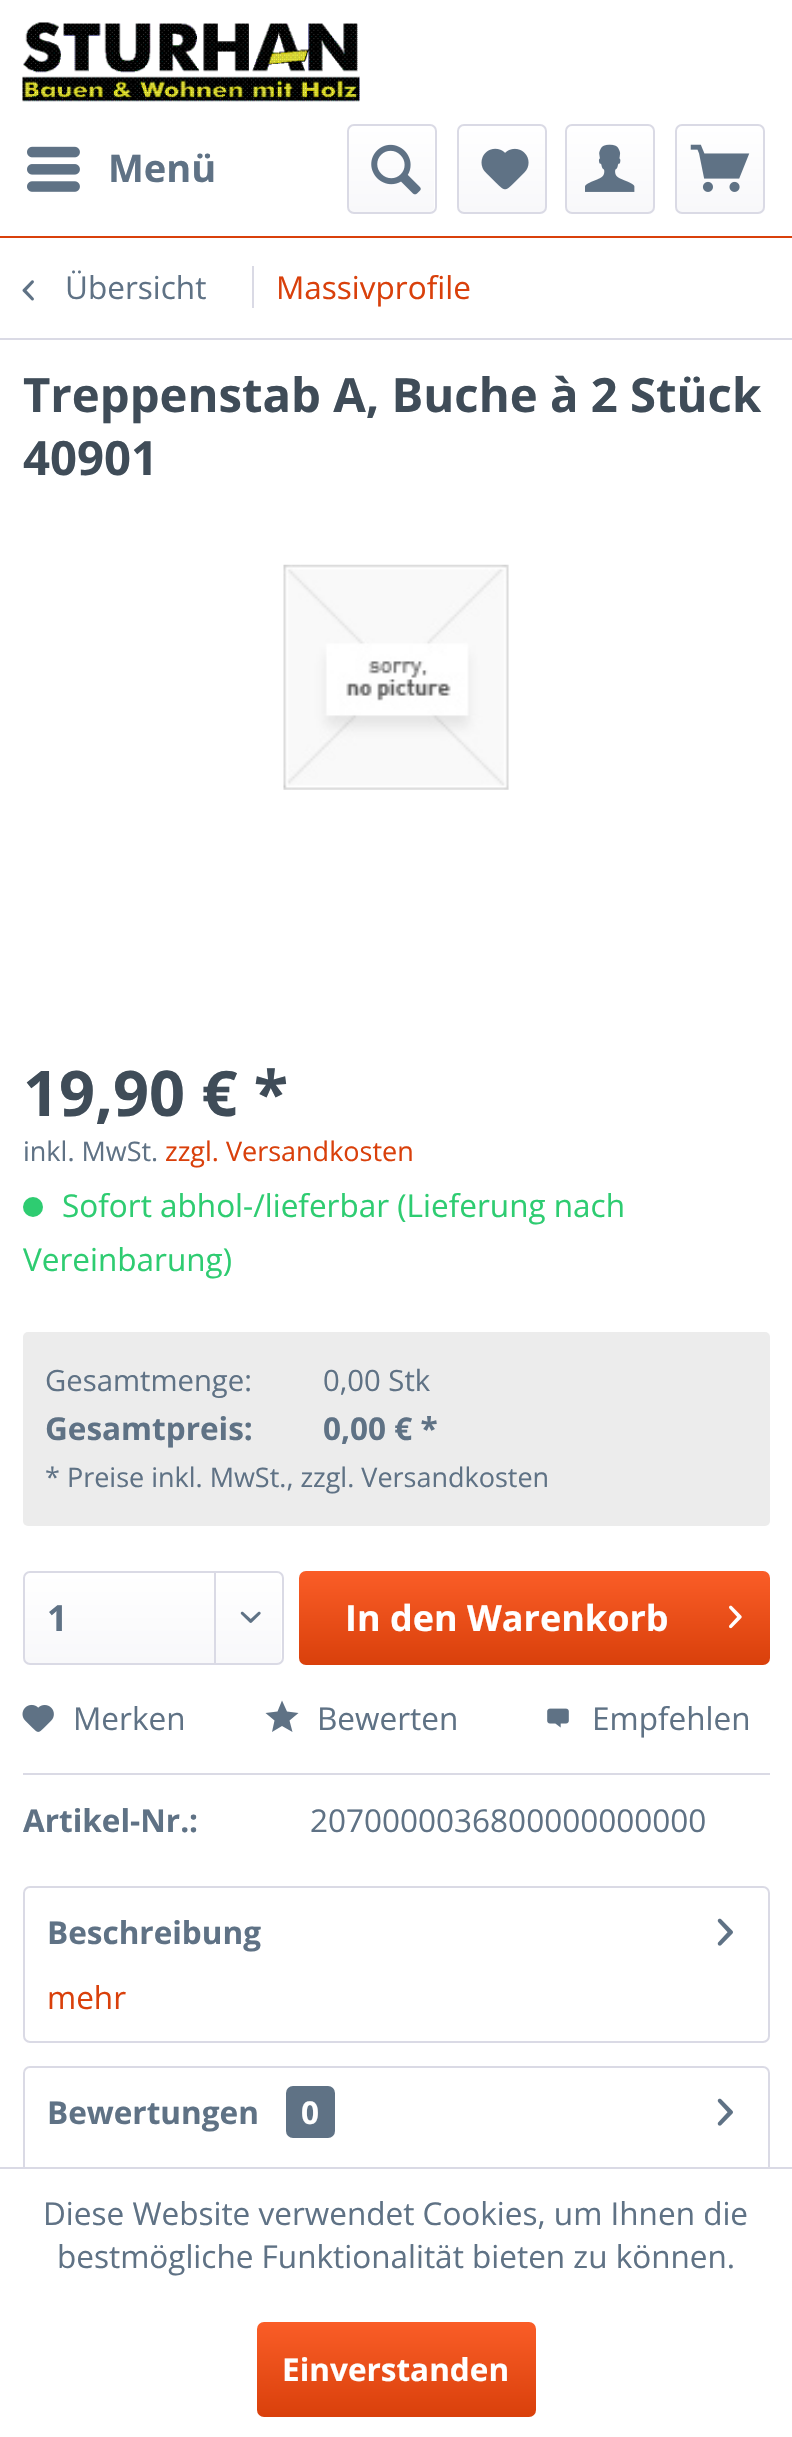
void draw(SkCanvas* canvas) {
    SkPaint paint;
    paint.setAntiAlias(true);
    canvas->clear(0xFFFFFFFF);
    paint.setColor(0xFFD9400B);
    canvas->drawRect(SkRect::MakeXYWH(0, 236, 792, 2), paint);
    canvas->drawImageRect(SkImages::DeferredFromEncodedData(SkData::MakeFromFileName("img1.png")), SkRect::MakeXYWH(22, 22, 338, 80), SkSamplingOptions());
    canvas->drawImageRect(SkImages::DeferredFromEncodedData(SkData::MakeFromFileName("img2.png")), SkRect::MakeXYWH(27, 146, 53, 46), SkSamplingOptions());
    SkFont font1(fontMgr->matchFamilyStyle("Open Sans", SkFontStyle::Bold()), 38);
    font1.setSubpixel(true);
    paint.setColor(0xFF5F7285);
    canvas->drawString("Menü", 108, 182, font1, paint);
    {
        const SkColor colors[] = {0xFFFFFFFF, 0xFFF8F8FA};
        const float stops[] = {0, 1};
        const SkPoint ends[] = {{392, 126}, {392, 212}};
        paint.setShader(SkGradientShader::MakeLinear(ends, colors, stops, 2, SkTileMode::kClamp));
        paint.setAlpha(255);
    }
    canvas->drawRoundRect(SkRect::MakeXYWH(349, 126, 85, 86), 5, 5, paint);
    paint.setStyle(SkPaint::kStroke_Style);
    paint.setStrokeWidth(2);
    paint.setShader(nullptr);
    paint.setColor(0xFFDADAE5);
    canvas->drawRoundRect(SkRect::MakeXYWH(348, 125, 88, 88), 6, 6, paint);
    canvas->drawImageRect(SkImages::DeferredFromEncodedData(SkData::MakeFromFileName("img3.png")), SkRect::MakeXYWH(371, 144, 50, 51), SkSamplingOptions());
    paint.setStyle(SkPaint::kFill_Style);
    {
        const SkColor colors[] = {0xFFFFFFFF, 0xFFF8F8FA};
        const float stops[] = {0, 1};
        const SkPoint ends[] = {{502, 126}, {502, 212}};
        paint.setShader(SkGradientShader::MakeLinear(ends, colors, stops, 2, SkTileMode::kClamp));
        paint.setAlpha(255);
    }
    canvas->drawRoundRect(SkRect::MakeXYWH(459, 126, 86, 86), 5, 5, paint);
    paint.setStyle(SkPaint::kStroke_Style);
    paint.setShader(nullptr);
    paint.setColor(0xFFDADAE5);
    canvas->drawRoundRect(SkRect::MakeXYWH(458, 125, 88, 88), 6, 6, paint);
    canvas->drawImageRect(SkImages::DeferredFromEncodedData(SkData::MakeFromFileName("img4.png")), SkRect::MakeXYWH(481, 148, 48, 42), SkSamplingOptions());
    paint.setStyle(SkPaint::kFill_Style);
    {
        const SkColor colors[] = {0xFFFFFFFF, 0xFFF8F8FA};
        const float stops[] = {0, 1};
        const SkPoint ends[] = {{610, 126}, {610, 212}};
        paint.setShader(SkGradientShader::MakeLinear(ends, colors, stops, 2, SkTileMode::kClamp));
        paint.setAlpha(255);
    }
    canvas->drawRoundRect(SkRect::MakeXYWH(567, 126, 86, 86), 5, 5, paint);
    paint.setStyle(SkPaint::kStroke_Style);
    paint.setShader(nullptr);
    paint.setColor(0xFFDADAE5);
    canvas->drawRoundRect(SkRect::MakeXYWH(566, 125, 88, 88), 6, 6, paint);
    canvas->drawImageRect(SkImages::DeferredFromEncodedData(SkData::MakeFromFileName("img5.png")), SkRect::MakeXYWH(585, 144, 50, 48), SkSamplingOptions());
    paint.setStyle(SkPaint::kFill_Style);
    {
        const SkColor colors[] = {0xFFFFFFFF, 0xFFF8F8FA};
        const float stops[] = {0, 1};
        const SkPoint ends[] = {{720, 126}, {720, 212}};
        paint.setShader(SkGradientShader::MakeLinear(ends, colors, stops, 2, SkTileMode::kClamp));
        paint.setAlpha(255);
    }
    canvas->drawRoundRect(SkRect::MakeXYWH(677, 126, 86, 86), 5, 5, paint);
    paint.setStyle(SkPaint::kStroke_Style);
    paint.setShader(nullptr);
    paint.setColor(0xFFDADAE5);
    canvas->drawRoundRect(SkRect::MakeXYWH(676, 125, 88, 88), 6, 6, paint);
    canvas->drawImageRect(SkImages::DeferredFromEncodedData(SkData::MakeFromFileName("img6.png")), SkRect::MakeXYWH(690, 144, 60, 48), SkSamplingOptions());
    paint.setStyle(SkPaint::kFill_Style);
    canvas->drawRect(SkRect::MakeXYWH(0, 338, 792, 2), paint);
    canvas->drawImageRect(SkImages::DeferredFromEncodedData(SkData::MakeFromFileName("img7.png")), SkRect::MakeXYWH(22, 280, 12, 21), SkSamplingOptions());
    SkFont font2(fontMgr->matchFamilyStyle("Open Sans", SkFontStyle::Normal()), 31.5f);
    font2.setSubpixel(true);
    paint.setColor(0xFF5F7285);
    canvas->drawString("Übersicht", 65, 299, font2, paint);
    paint.setColor(0xFFDADAE5);
    canvas->drawRect(SkRect::MakeXYWH(252, 266, 2, 42), paint);
    paint.setColor(0xFFD9400B);
    canvas->drawString("Massivprofile", 276, 299, font2, paint);
    SkFont font3(fontMgr->matchFamilyStyle("Open Sans", SkFontStyle::Bold()), 47.25f);
    font3.setSubpixel(true);
    paint.setColor(0xFF3F4C58);
    canvas->drawString("Treppenstab A, Buche à 2 Stück", 23, 412, font3, paint);
    canvas->drawString("40901", 23, 475, font3, paint);
    canvas->drawImageRect(SkImages::DeferredFromEncodedData(SkData::MakeFromFileName("img8.png")), SkRect::MakeXYWH(283, 564, 226, 226), SkSamplingOptions());
    SkFont font4(fontMgr->matchFamilyStyle("Open Sans", SkFontStyle::Bold()), 63);
    font4.setSubpixel(true);
    canvas->drawString("19,90 € *", 23, 1116, font4, paint);
    SkFont font5(fontMgr->matchFamilyStyle("Open Sans", SkFontStyle::Normal()), 27);
    font5.setSubpixel(true);
    paint.setColor(0xFF5F7285);
    canvas->drawString("inkl. MwSt.", 23, 1161, font5, paint);
    paint.setColor(0xFFD9400B);
    canvas->drawString("zzgl. Versandkosten", 165, 1161, font5, paint);
    paint.setColor(0xFF2ECC71);
    canvas->drawCircle(33, 1207, 10, paint);
    canvas->drawString("Sofort abhol-/lieferbar (Lieferung nach", 62, 1217, font2, paint);
    canvas->drawString("Vereinbarung)", 23, 1271, font2, paint);
    paint.setColor(0xFFECECEC);
    canvas->drawRoundRect(SkRect::MakeXYWH(23, 1332, 747, 194), 5, 5, paint);
    SkFont font6(fontMgr->matchFamilyStyle("Open Sans", SkFontStyle::Normal()), 29.25f);
    font6.setSubpixel(true);
    paint.setColor(0xFF5F7285);
    canvas->drawString("Gesamtmenge:", 45, 1391, font6, paint);
    canvas->drawString("0,00 Stk", 323, 1391, font6, paint);
    SkFont font7(fontMgr->matchFamilyStyle("Open Sans", SkFontStyle::Bold()), 31.5f);
    font7.setSubpixel(true);
    canvas->drawString("Gesamtpreis:", 45, 1440, font7, paint);
    canvas->drawString("0,00 € *", 323, 1440, font7, paint);
    canvas->drawString("* Preise inkl. MwSt., zzgl. Versandkosten", 45, 1487, font5, paint);
    {
        const SkColor colors[] = {0xFFFFFFFF, 0xFFF8F8FA};
        const float stops[] = {0, 1};
        const SkPoint ends[] = {{153, 1573}, {153, 1663}};
        paint.setShader(SkGradientShader::MakeLinear(ends, colors, stops, 2, SkTileMode::kClamp));
        paint.setAlpha(255);
    }
    canvas->drawRoundRect(SkRect::MakeXYWH(25, 1573, 256, 90), 5, 5, paint);
    paint.setStyle(SkPaint::kStroke_Style);
    paint.setShader(nullptr);
    paint.setColor(0xFFDADAE5);
    canvas->drawRoundRect(SkRect::MakeXYWH(24, 1572, 259, 92), 6, 6, paint);
    SkFont font8(fontMgr->matchFamilyStyle("Open Sans", SkFontStyle::Bold()), 36);
    font8.setSubpixel(true);
    paint.setStyle(SkPaint::kFill_Style);
    paint.setColor(0xFF5F7285);
    canvas->drawString("1", 47, 1631, font8, paint);
    paint.setColor(0xFFDADAE5);
    canvas->drawRect(SkRect::MakeXYWH(214, 1573, 2, 90), paint);
    canvas->drawImageRect(SkImages::DeferredFromEncodedData(SkData::MakeFromFileName("img9.png")), SkRect::MakeXYWH(240, 1611, 21, 12), SkSamplingOptions());
    {
        const SkColor colors[] = {0xFFFA5D27, 0xFFD9400B};
        const float stops[] = {0, 1};
        const SkPoint ends[] = {{534, 1571}, {534, 1665}};
        paint.setShader(SkGradientShader::MakeLinear(ends, colors, stops, 2, SkTileMode::kClamp));
        paint.setAlpha(255);
    }
    canvas->drawRoundRect(SkRect::MakeXYWH(299, 1571, 471, 94), 7, 7, paint);
    paint.setShader(nullptr);
    paint.setColor(0xFFFFFFFF);
    canvas->drawString("In den Warenkorb", 345, 1631, font8, paint);
    canvas->drawImageRect(SkImages::DeferredFromEncodedData(SkData::MakeFromFileName("img10.png")), SkRect::MakeXYWH(729, 1605, 13, 24), SkSamplingOptions());
    paint.setColor(0xFFDADAE5);
    canvas->drawRect(SkRect::MakeXYWH(23, 1773, 747, 2), paint);
    canvas->drawImageRect(SkImages::DeferredFromEncodedData(SkData::MakeFromFileName("img11.png")), SkRect::MakeXYWH(22, 1704, 32, 28), SkSamplingOptions());
    paint.setColor(0xFF5F7285);
    canvas->drawString("Merken", 73, 1730, font2, paint);
    canvas->drawPath(SkPathBuilder().moveTo(282, 1700.5f).lineTo(277.5f, 1711.5f).lineTo(265.5f, 1713).lineTo(274.5f, 1720.5f).lineTo(272, 1732).lineTo(282, 1726).lineTo(292.5f, 1732).lineTo(289.5f, 1720.5f).lineTo(298.5f, 1713).lineTo(287, 1711.5f).close().detach(), paint);
    canvas->drawString("Bewerten", 317, 1730, font2, paint);
    canvas->drawImageRect(SkImages::DeferredFromEncodedData(SkData::MakeFromFileName("img12.png")), SkRect::MakeXYWH(547, 1708, 22, 20), SkSamplingOptions());
    canvas->drawString("Empfehlen", 592, 1730, font2, paint);
    canvas->drawString("Artikel-Nr.:", 23, 1832, font7, paint);
    canvas->drawString("2070000036800000000000", 310, 1832, font2, paint);
    paint.setStyle(SkPaint::kStroke_Style);
    paint.setColor(0xFFDADAE5);
    canvas->drawRoundRect(SkRect::MakeXYWH(24, 1887, 745, 155), 6, 6, paint);
    paint.setStyle(SkPaint::kFill_Style);
    paint.setColor(0xFF5F7285);
    canvas->drawString("Beschreibung", 47, 1944, font7, paint);
    canvas->drawImageRect(SkImages::DeferredFromEncodedData(SkData::MakeFromFileName("img13.png")), SkRect::MakeXYWH(717, 1918, 16, 28), SkSamplingOptions());
    paint.setColor(0xFFD9400B);
    canvas->drawString("mehr", 47, 2009, font2, paint);
    paint.setStyle(SkPaint::kStroke_Style);
    paint.setColor(0xFFDADAE5);
    canvas->drawRoundRect(SkRect::MakeXYWH(24, 2067, 745, 198), 6, 6, paint);
    paint.setStyle(SkPaint::kFill_Style);
    paint.setColor(0xFF5F7285);
    canvas->drawString("Bewertungen", 47, 2124, font7, paint);
    canvas->drawImageRect(SkImages::DeferredFromEncodedData(SkData::MakeFromFileName("img13.png")), SkRect::MakeXYWH(717, 2098, 16, 28), SkSamplingOptions());
    canvas->drawRoundRect(SkRect::MakeXYWH(286, 2086, 49, 52), 7, 7, paint);
    paint.setColor(0xFFFFFFFF);
    canvas->drawString("0", 301, 2124, font7, paint);
    canvas->drawRect(SkRect::MakeXYWH(23, 2169, 747, 97), paint);
    paint.setColor(0xFFDADAE5);
    canvas->drawRect(SkRect::MakeXYWH(0, 2167, 792, 2), paint);
    paint.setColor(0xFF5F7285);
    canvas->drawString("Diese Website verwendet Cookies, um Ihnen die", 43, 2225, font2, paint);
    canvas->drawString("bestmögliche Funktionalität bieten zu können.", 57, 2268, font2, paint);
    {
        const SkColor colors[] = {0xFFFA5D27, 0xFFD9400B};
        const float stops[] = {0, 1};
        const SkPoint ends[] = {{396, 2322}, {396, 2417}};
        paint.setShader(SkGradientShader::MakeLinear(ends, colors, stops, 2, SkTileMode::kClamp));
        paint.setAlpha(255);
    }
    canvas->drawRoundRect(SkRect::MakeXYWH(257, 2322, 279, 95), 7, 7, paint);
    paint.setShader(nullptr);
    paint.setColor(0xFFFFFFFF);
    canvas->drawString("Einverstanden", 282, 2381, font7, paint);
}
